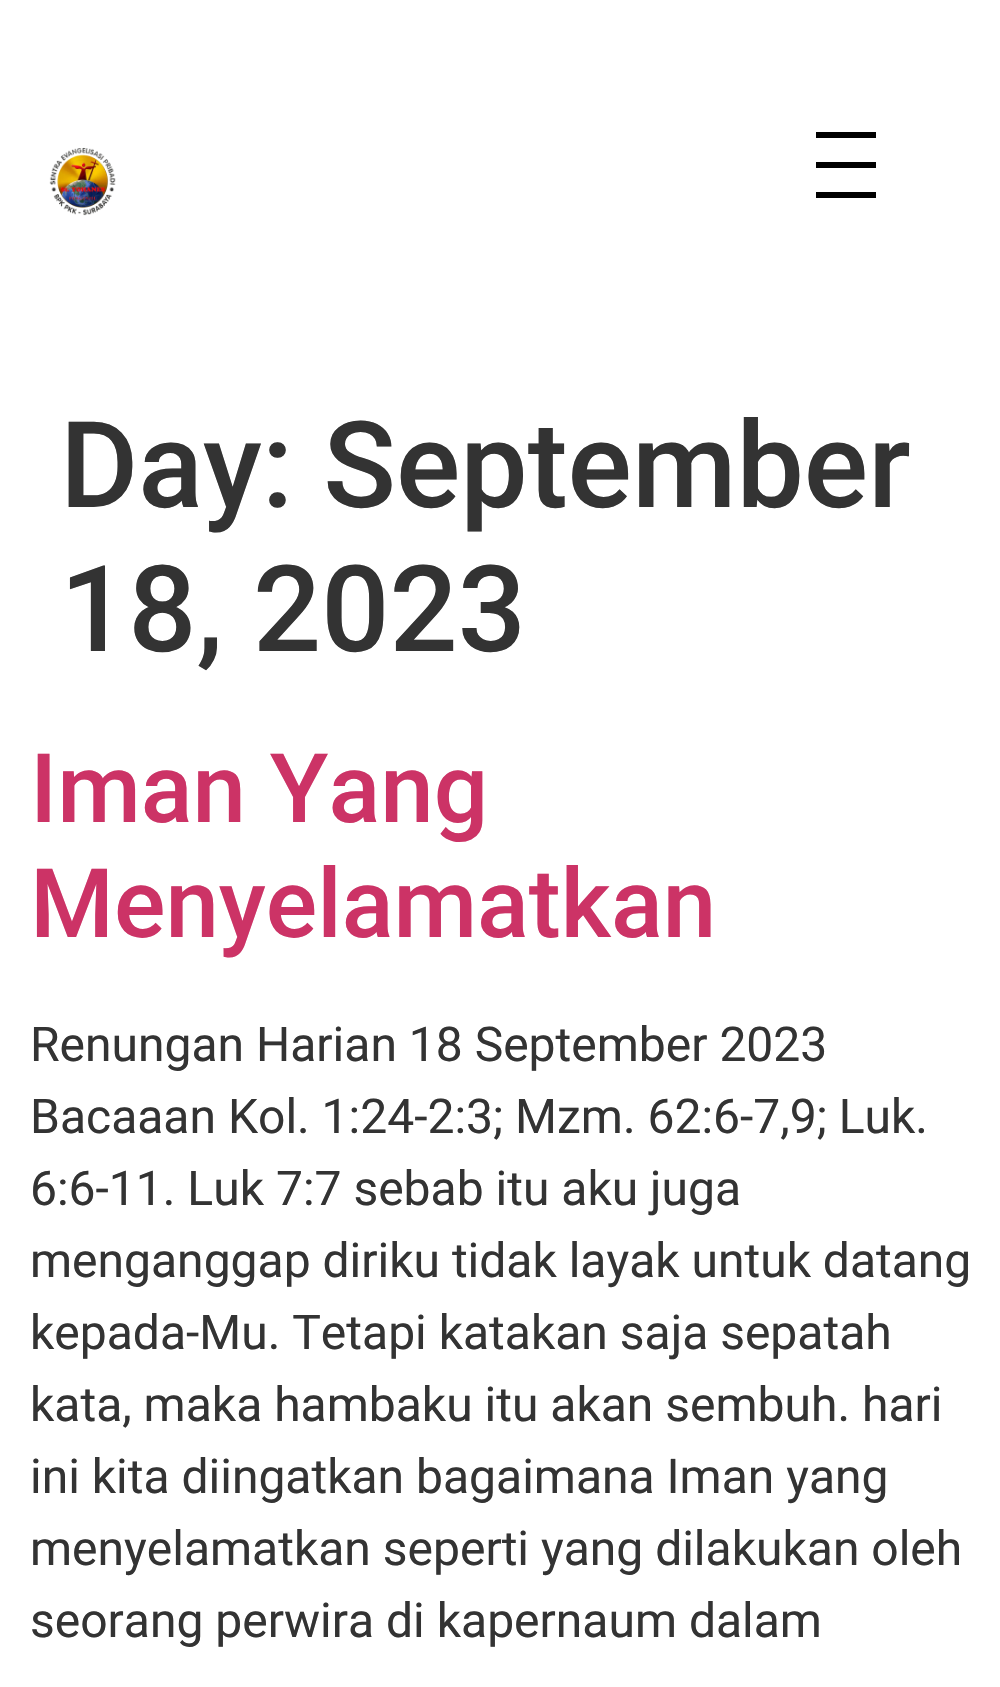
void draw(SkCanvas* canvas) {
    SkPaint paint;
    paint.setAntiAlias(true);
    canvas->clear(0xFFFFFFFF);
    canvas->drawImageRect(SkImages::DeferredFromEncodedData(SkData::MakeFromFileName("img1.png")), SkRect::MakeXYWH(49, 147, 67, 69), SkSamplingOptions());
    paint.setColor(0xFF000000);
    canvas->drawRect(SkRect::MakeXYWH(816, 132, 60, 6), paint);
    canvas->drawRect(SkRect::MakeXYWH(816, 162, 60, 6), paint);
    canvas->drawRect(SkRect::MakeXYWH(816, 192, 60, 6), paint);
    SkFont font1(fontMgr->matchFamilyStyle("Roboto", SkFontStyle(500, SkFontStyle::kNormal_Width, SkFontStyle::kUpright_Slant)), 120);
    font1.setSubpixel(true);
    paint.setColor(0xFF333333);
    canvas->drawString("Day: September", 60, 507, font1, paint);
    canvas->drawString("18, 2023", 60, 651, font1, paint);
    SkFont font2(fontMgr->matchFamilyStyle("Roboto", SkFontStyle(500, SkFontStyle::kNormal_Width, SkFontStyle::kUpright_Slant)), 96);
    font2.setSubpixel(true);
    paint.setColor(0xFFCC3366);
    canvas->drawString("Iman Yang", 30, 822, font2, paint);
    canvas->drawString("Menyelamatkan", 30, 937, font2, paint);
    SkFont font3(fontMgr->matchFamilyStyle("Roboto", SkFontStyle::Normal()), 48);
    font3.setSubpixel(true);
    paint.setColor(0xFF333333);
    canvas->drawString("Renungan Harian 18 September 2023", 30, 1061, font3, paint);
    canvas->drawString("Bacaaan Kol. 1:24-2:3; Mzm. 62:6-7,9; Luk.", 30, 1133, font3, paint);
    canvas->drawString("6:6-11. Luk 7:7 sebab itu aku juga", 30, 1205, font3, paint);
    canvas->drawString("menganggap diriku tidak layak untuk datang", 30, 1277, font3, paint);
    canvas->drawString("kepada-Mu. Tetapi katakan saja sepatah", 30, 1349, font3, paint);
    canvas->drawString("kata, maka hambaku itu akan sembuh. hari", 30, 1421, font3, paint);
    canvas->drawString("ini kita diingatkan bagaimana Iman yang", 30, 1493, font3, paint);
    canvas->drawString("menyelamatkan seperti yang dilakukan oleh", 30, 1565, font3, paint);
    canvas->drawString("seorang perwira di kapernaum dalam", 30, 1637, font3, paint);
}
